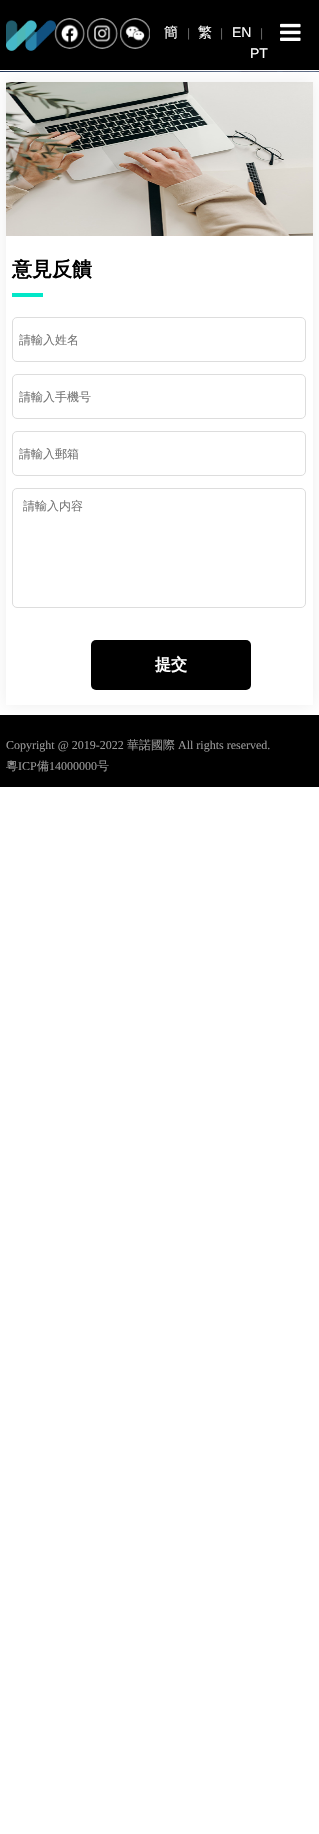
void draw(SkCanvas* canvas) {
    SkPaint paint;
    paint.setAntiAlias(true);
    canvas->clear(0xFFFFFFFF);
    canvas->drawImageRect(SkImages::DeferredFromEncodedData(SkData::MakeFromFileName("img6.png")), SkRect::MakeXYWH(0, 71, 319, 1), SkSamplingOptions());
    canvas->save();
    canvas->clipPath(SkPathBuilder(SkPathFillType::kEvenOdd).moveTo(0, 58).lineTo(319, 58).lineTo(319, 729).lineTo(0, 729).close().moveTo(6, 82).lineTo(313, 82).lineTo(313, 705).lineTo(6, 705).close().detach(), true);
    paint.setColor(0xFFEEEEEE);
    paint.setMaskFilter(SkMaskFilter::MakeBlur(kNormal_SkBlurStyle, 7.5f));
    canvas->drawRect(SkRect::MakeXYWH(6, 82, 307, 623), paint);
    paint.setMaskFilter(nullptr);
    canvas->restore();
    paint.setColor(0xFF000000);
    canvas->drawRect(SkRect::MakeXYWH(0, 0, 319, 70), paint);
    canvas->drawImageRect(SkImages::DeferredFromEncodedData(SkData::MakeFromFileName("img1.png")), SkRect::MakeXYWH(6, 20, 50, 31), SkSamplingOptions());
    canvas->drawImageRect(SkImages::DeferredFromEncodedData(SkData::MakeFromFileName("img2.png")), SkRect::MakeXYWH(54, 18, 31, 31), SkSamplingOptions());
    canvas->drawImageRect(SkImages::DeferredFromEncodedData(SkData::MakeFromFileName("img3.png")), SkRect::MakeXYWH(87, 18, 31, 31), SkSamplingOptions());
    canvas->drawImageRect(SkImages::DeferredFromEncodedData(SkData::MakeFromFileName("img4.png")), SkRect::MakeXYWH(120, 18, 30, 31), SkSamplingOptions());
    SkFont font1(fontMgr->matchFamilyStyle("WenQuanYi Zen Hei", SkFontStyle(500, SkFontStyle::kNormal_Width, SkFontStyle::kUpright_Slant)), 14);
    font1.setSubpixel(true);
    paint.setColor(0xFFFFFFFF);
    canvas->drawString("簡", 164, 37, font1, paint);
    SkFont font2(fontMgr->matchFamilyStyle("Liberation Sans", SkFontStyle::Normal()), 12);
    font2.setSubpixel(true);
    paint.setColor(0xFF666666);
    canvas->drawString("|", 187, 37, font2, paint);
    paint.setColor(0xFFFFFFFF);
    canvas->drawString("繁", 198, 37, font1, paint);
    paint.setColor(0xFF666666);
    canvas->drawString("|", 220, 37, font2, paint);
    SkFont font3(fontMgr->matchFamilyStyle("Liberation Sans", SkFontStyle::Normal()), 14);
    font3.setSubpixel(true);
    paint.setColor(0xFFFFFFFF);
    canvas->drawString("EN", 232, 37, font3, paint);
    paint.setColor(0xFF666666);
    canvas->drawString("|", 260, 37, font2, paint);
    paint.setColor(0xFFFFFFFF);
    canvas->drawString("PT", 250, 58, font3, paint);
    canvas->drawImageRect(SkImages::DeferredFromEncodedData(SkData::MakeFromFileName("img5.png")), SkRect::MakeXYWH(280, 23, 21, 18), SkSamplingOptions());
    canvas->drawImageRect(SkImages::DeferredFromEncodedData(SkData::MakeFromFileName("img7.png")), SkRect::MakeXYWH(6, 82, 307, 154), SkSamplingOptions());
    SkFont font4(fontMgr->matchFamilyStyle("WenQuanYi Zen Hei", SkFontStyle::Bold()), 20);
    font4.setSubpixel(true);
    paint.setColor(0xFF000000);
    canvas->drawString("意見反饋", 12, 276, font4, paint);
    paint.setColor(0xFF02E7C8);
    canvas->drawRect(SkRect::MakeXYWH(12, 293, 31, 4), paint);
    paint.setStyle(SkPaint::kStroke_Style);
    paint.setStrokeWidth(1);
    paint.setColor(0xFFDDDDDD);
    canvas->drawRoundRect(SkRect::MakeXYWH(12.5f, 317.5f, 293, 44), 4.5f, 4.5f, paint);
    SkFont font5(fontMgr->matchFamilyStyle("WenQuanYi Zen Hei", SkFontStyle(500, SkFontStyle::kNormal_Width, SkFontStyle::kUpright_Slant)), 12);
    font5.setSubpixel(true);
    paint.setStyle(SkPaint::kFill_Style);
    paint.setColor(0xFF757575);
    canvas->drawString("請輸入姓名", 19, 344, font5, paint);
    paint.setStyle(SkPaint::kStroke_Style);
    paint.setColor(0xFFDDDDDD);
    canvas->drawRoundRect(SkRect::MakeXYWH(12.5f, 374.5f, 293, 44), 4.5f, 4.5f, paint);
    paint.setStyle(SkPaint::kFill_Style);
    paint.setColor(0xFF757575);
    canvas->drawString("請輸入手機号", 19, 401, font5, paint);
    paint.setStyle(SkPaint::kStroke_Style);
    paint.setColor(0xFFDDDDDD);
    canvas->drawRoundRect(SkRect::MakeXYWH(12.5f, 431.5f, 293, 44), 4.5f, 4.5f, paint);
    paint.setStyle(SkPaint::kFill_Style);
    paint.setColor(0xFF757575);
    canvas->drawString("請輸入郵箱", 19, 458, font5, paint);
    paint.setStyle(SkPaint::kStroke_Style);
    paint.setColor(0xFFDDDDDD);
    canvas->drawRoundRect(SkRect::MakeXYWH(12.5f, 488.5f, 293, 119), 4.5f, 4.5f, paint);
    paint.setStyle(SkPaint::kFill_Style);
    paint.setColor(0xFF757575);
    canvas->drawString("請輸入内容", 23, 510, font5, paint);
    paint.setColor(0xFF000000);
    canvas->drawRoundRect(SkRect::MakeXYWH(91, 640, 160, 50), 5, 5, paint);
    SkFont font6(fontMgr->matchFamilyStyle("WenQuanYi Zen Hei", SkFontStyle::Bold()), 16);
    font6.setSubpixel(true);
    paint.setColor(0xFFFFFFFF);
    canvas->drawString("提交", 155, 670, font6, paint);
    paint.setColor(0xFF000000);
    canvas->drawRect(SkRect::MakeXYWH(0, 715, 319, 72), paint);
    SkFont font7(fontMgr->matchFamilyStyle("Liberation Serif", SkFontStyle::Normal()), 12);
    font7.setSubpixel(true);
    paint.setColor(0xFF999999);
    canvas->drawString("Copyright @ 2019-2022", 6, 749, font7, paint);
    canvas->drawString("華諾國際", 127, 749, font5, paint);
    canvas->drawString("All rights reserved.", 178, 749, font7, paint);
    canvas->drawString("粵", 6, 770, font5, paint);
    canvas->drawString("ICP", 18, 770, font7, paint);
    canvas->drawString("備", 37, 770, font5, paint);
    canvas->drawString("14000000", 49, 770, font7, paint);
    canvas->drawString("号", 97, 770, font5, paint);
}
